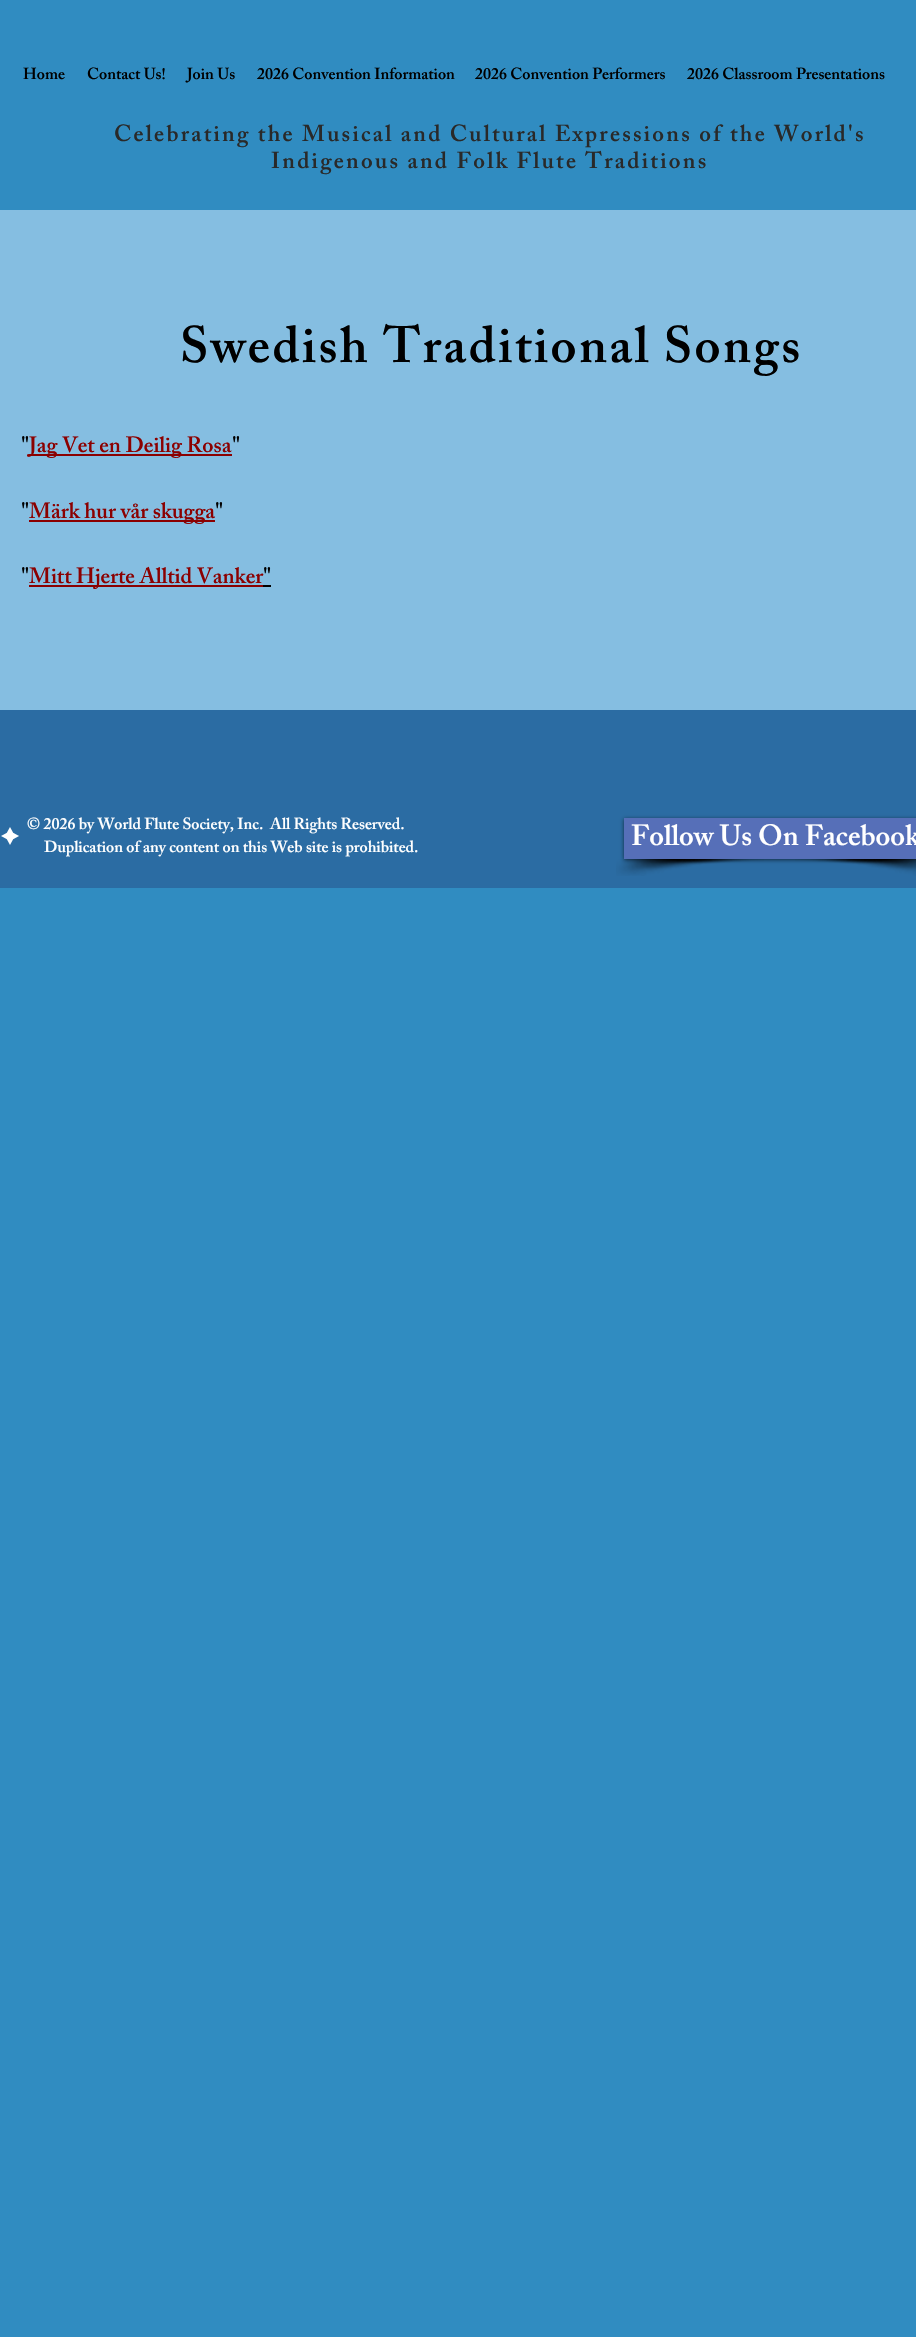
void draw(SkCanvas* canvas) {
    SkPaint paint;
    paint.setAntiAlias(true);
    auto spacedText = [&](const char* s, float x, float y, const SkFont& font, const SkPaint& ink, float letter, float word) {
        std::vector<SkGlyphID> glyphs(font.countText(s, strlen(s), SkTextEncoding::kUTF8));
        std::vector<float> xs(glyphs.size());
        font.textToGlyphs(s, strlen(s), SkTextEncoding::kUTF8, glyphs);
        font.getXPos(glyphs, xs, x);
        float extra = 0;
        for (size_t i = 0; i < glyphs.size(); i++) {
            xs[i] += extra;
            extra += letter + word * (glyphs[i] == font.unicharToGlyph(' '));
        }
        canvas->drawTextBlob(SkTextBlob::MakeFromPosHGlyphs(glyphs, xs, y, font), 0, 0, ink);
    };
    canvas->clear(0xFF308CC1);
    SkFont font1(fontMgr->matchFamilyStyle("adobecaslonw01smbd", SkFontStyle(600, SkFontStyle::kNormal_Width, SkFontStyle::kUpright_Slant)), 16);
    font1.setSubpixel(true);
    paint.setColor(0xFF000000);
    canvas->drawString("Home", 23, 79, font1, paint);
    canvas->drawString("Contact Us!", 87, 79, font1, paint);
    canvas->drawString("Join Us", 187, 79, font1, paint);
    canvas->drawString("2026 Convention Information", 257, 79, font1, paint);
    canvas->drawString("2026 Convention Performers", 475, 79, font1, paint);
    canvas->drawString("2026 Classroom Presentations", 687, 79, font1, paint);
    SkFont font2(fontMgr->matchFamilyStyle("adobecaslonw01smbd", SkFontStyle(600, SkFontStyle::kNormal_Width, SkFontStyle::kUpright_Slant)), 23);
    font2.setSubpixel(true);
    paint.setColor(0xFF292929);
    spacedText("Celebrating the Musical and Cultural Expressions of the World's", 114, 141, font2, paint, 2.3f, 0);
    spacedText("Indigenous and Folk Flute Traditions", 271, 168, font2, paint, 2.3f, 0);
    paint.setColor(0xFF85BEE1);
    canvas->drawRect(SkRect::MakeXYWH(0, 210, 916, 500), paint);
    SkFont font3(fontMgr->matchFamilyStyle("adobecaslonw01smbd", SkFontStyle(600, SkFontStyle::kNormal_Width, SkFontStyle::kUpright_Slant)), 51);
    font3.setSubpixel(true);
    paint.setColor(0xFF000000);
    spacedText("Swedish Traditional Songs", 180, 362, font3, paint, 2.55f, 0);
    SkFont font4(fontMgr->matchFamilyStyle("adobecaslonw01smbd", SkFontStyle(600, SkFontStyle::kNormal_Width, SkFontStyle::kUpright_Slant)), 22);
    font4.setSubpixel(true);
    canvas->drawString("\"", 21, 452, font4, paint);
    paint.setColor(0xFF8B0000);
    canvas->drawRect(SkRect::MakeXYWH(29, 454, 203, 2), paint);
    canvas->drawString("Jag Vet en Deilig Rosa", 29, 452, font4, paint);
    paint.setColor(0xFF000000);
    canvas->drawString("\"", 232, 452, font4, paint);
    canvas->drawString("\"", 21, 518, font4, paint);
    paint.setColor(0xFF8B0000);
    canvas->drawRect(SkRect::MakeXYWH(29, 520, 186, 2), paint);
    canvas->drawString("Märk hur vår skugga", 29, 518, font4, paint);
    paint.setColor(0xFF000000);
    canvas->drawString("\"", 215, 518, font4, paint);
    canvas->drawString("\"", 21, 583, font4, paint);
    paint.setColor(0xFF8B0000);
    canvas->drawRect(SkRect::MakeXYWH(29, 585, 234, 2), paint);
    canvas->drawString("Mitt Hjerte Alltid Vanker", 29, 583, font4, paint);
    paint.setColor(0xFF000000);
    canvas->drawRect(SkRect::MakeXYWH(263, 585, 8, 2), paint);
    canvas->drawString("\"", 263, 583, font4, paint);
    paint.setColor(0xFF2B6CA3);
    canvas->drawRect(SkRect::MakeXYWH(0, 710, 916, 178), paint);
    canvas->drawImageRect(SkImages::DeferredFromEncodedData(SkData::MakeFromFileName("img1.png")), SkRect::MakeXYWH(1, 827, 18, 18), SkSamplingOptions());
    paint.setColor(0xFFFFFFFF);
    canvas->drawString("© 2026 by World Flute Society, Inc.  All Rights Reserved.", 27, 829, font1, paint);
    canvas->drawString("Duplication of any content on this Web site is prohibited.", 44, 852, font1, paint);
    canvas->drawImageRect(SkImages::DeferredFromEncodedData(SkData::MakeFromFileName("img2.png")), SkRect::MakeXYWH(616, 859, 148, 17), SkSamplingOptions());
    canvas->drawImageRect(SkImages::DeferredFromEncodedData(SkData::MakeFromFileName("img3.png")), SkRect::MakeXYWH(795, 859, 121, 17), SkSamplingOptions());
    paint.setColor(0x99000000);
    paint.setMaskFilter(SkMaskFilter::MakeBlur(kNormal_SkBlurStyle, 2));
    canvas->drawRect(SkRect::MakeXYWH(624, 819, 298, 41), paint);
    paint.setMaskFilter(nullptr);
    paint.setColor(0xFF566FB8);
    canvas->drawRect(SkRect::MakeXYWH(624, 818, 292, 41), paint);
    SkFont font5(fontMgr->matchFamilyStyle("adobecaslonw01smbd", SkFontStyle(600, SkFontStyle::kNormal_Width, SkFontStyle::kUpright_Slant)), 29);
    font5.setSubpixel(true);
    paint.setColor(0xFFFFFFFF);
    canvas->drawString("Follow Us On Facebook", 631, 845, font5, paint);
}
